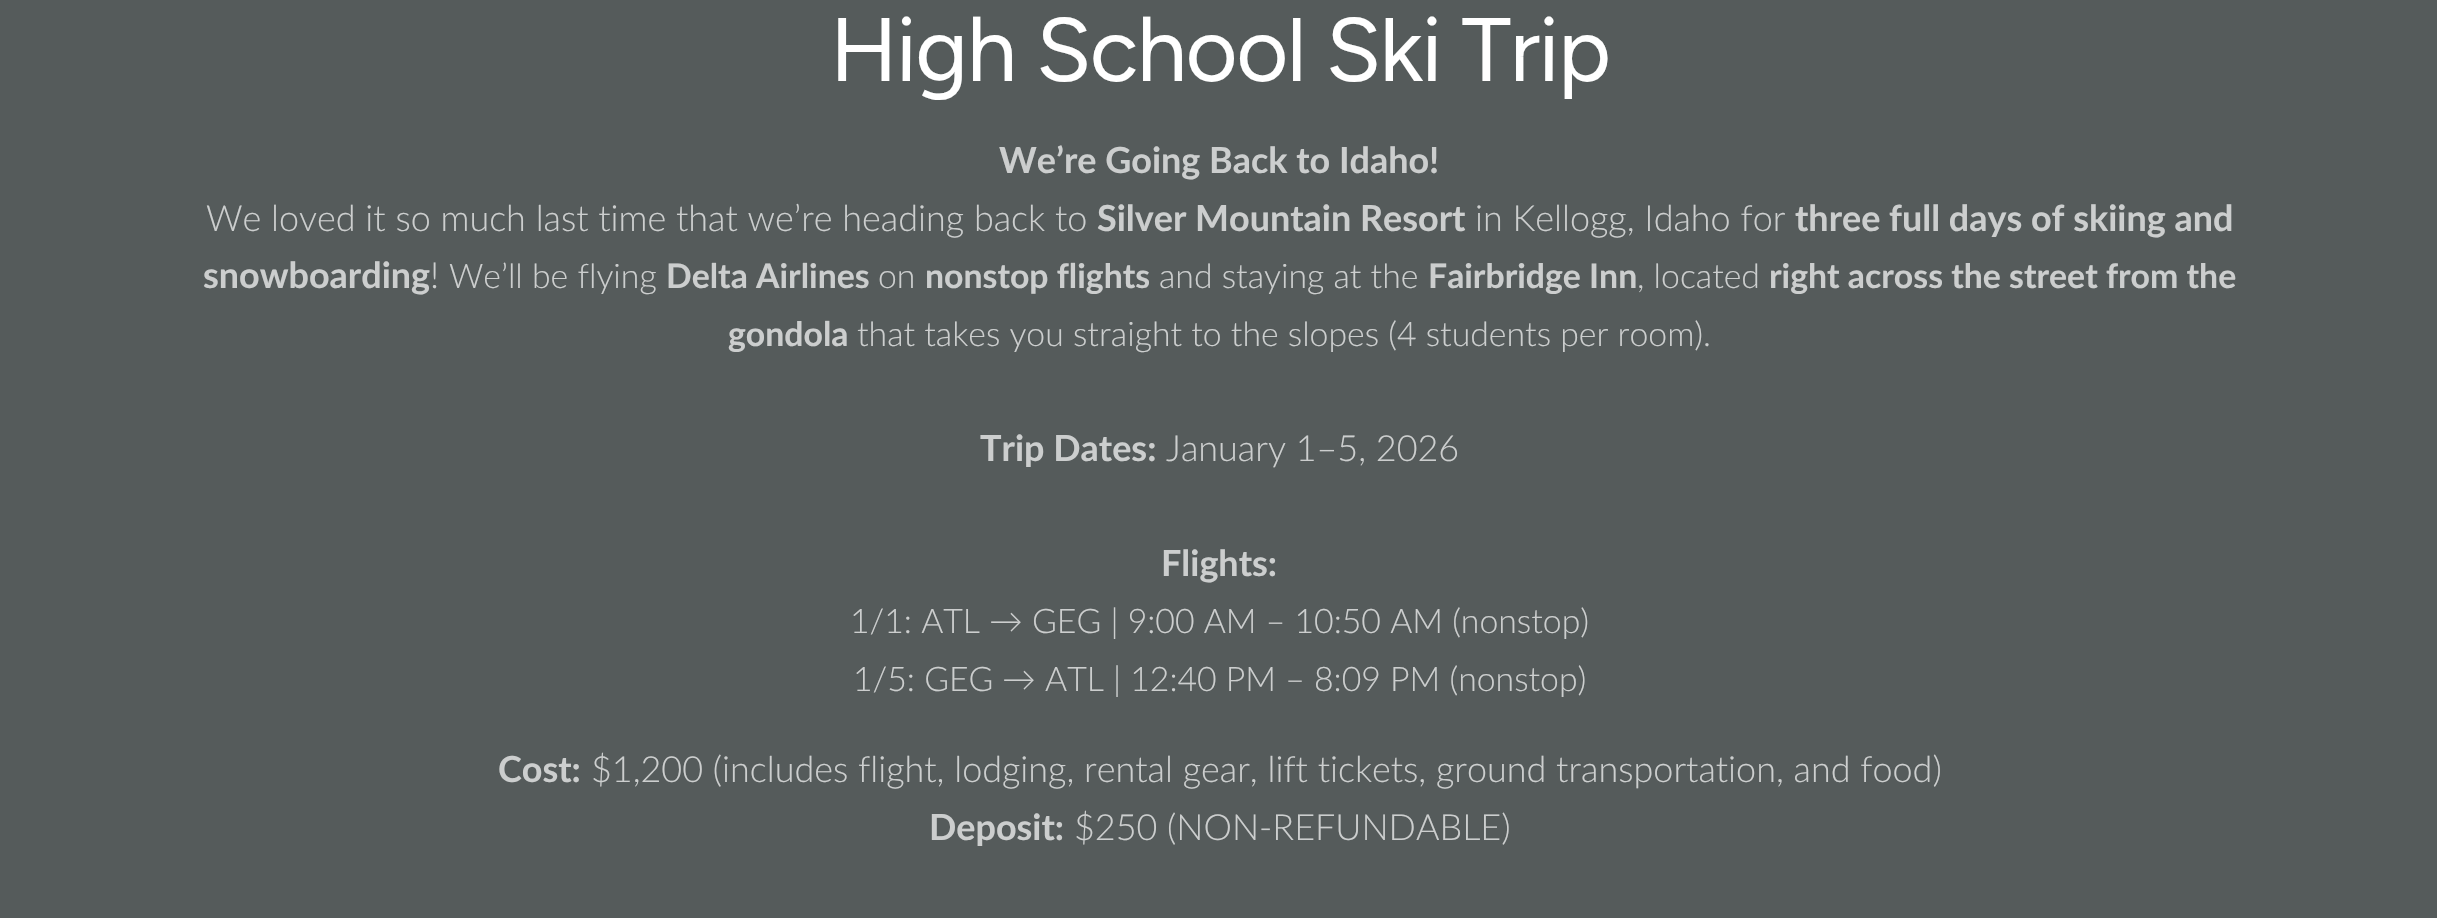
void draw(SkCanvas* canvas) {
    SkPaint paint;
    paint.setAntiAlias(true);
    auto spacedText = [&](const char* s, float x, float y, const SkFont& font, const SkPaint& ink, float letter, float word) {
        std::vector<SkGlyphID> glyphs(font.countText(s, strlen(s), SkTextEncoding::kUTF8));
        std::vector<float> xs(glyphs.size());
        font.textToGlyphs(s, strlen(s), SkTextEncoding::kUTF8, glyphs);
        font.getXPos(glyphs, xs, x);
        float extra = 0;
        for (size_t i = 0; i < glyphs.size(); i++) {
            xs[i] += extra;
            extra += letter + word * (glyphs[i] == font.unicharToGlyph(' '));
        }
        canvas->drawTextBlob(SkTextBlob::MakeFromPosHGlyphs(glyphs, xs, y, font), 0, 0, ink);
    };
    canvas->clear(0xFF555B5B);
    SkFont font1(fontMgr->matchFamilyStyle("Figtree", SkFontStyle(300, SkFontStyle::kNormal_Width, SkFontStyle::kUpright_Slant)), 90);
    font1.setSubpixel(true);
    paint.setColor(0xFFFFFFFF);
    spacedText("High School Ski Trip", 830, 81, font1, paint, -1.55f, 0);
    SkFont font2(fontMgr->matchFamilyStyle("Lato", SkFontStyle::Bold()), 35.95f);
    font2.setSubpixel(true);
    paint.setColor(0xFFCCCECE);
    canvas->drawString("We’re Going Back to Idaho!", 999, 173, font2, paint);
    SkFont font3(fontMgr->matchFamilyStyle("Lato", SkFontStyle(300, SkFontStyle::kNormal_Width, SkFontStyle::kUpright_Slant)), 35.95f);
    font3.setSubpixel(true);
    canvas->drawString("We loved it so much last time that we’re heading back to", 206, 231, font3, paint);
    canvas->drawString("Silver Mountain Resort", 1097, 231, font2, paint);
    canvas->drawString("in Kellogg, Idaho for", 1475, 231, font3, paint);
    canvas->drawString("three full days of skiing and", 1795, 231, font2, paint);
    canvas->drawString("snowboarding", 203, 288, font2, paint);
    canvas->drawString("!", 430, 288, font3, paint);
    SkFont font4(fontMgr->matchFamilyStyle("Lato", SkFontStyle(300, SkFontStyle::kNormal_Width, SkFontStyle::kUpright_Slant)), 33.8f);
    font4.setSubpixel(true);
    canvas->drawString("We’ll be flying", 449, 288, font4, paint);
    SkFont font5(fontMgr->matchFamilyStyle("Lato", SkFontStyle::Bold()), 33.8f);
    font5.setSubpixel(true);
    canvas->drawString("Delta Airlines", 666, 288, font5, paint);
    canvas->drawString("on", 878, 288, font4, paint);
    canvas->drawString("nonstop flights", 925, 288, font5, paint);
    canvas->drawString("and staying at the", 1159, 288, font4, paint);
    canvas->drawString("Fairbridge Inn", 1428, 288, font5, paint);
    canvas->drawString(", located", 1637, 288, font4, paint);
    canvas->drawString("right across the street from the", 1769, 288, font5, paint);
    canvas->drawString("gondola", 728, 346, font5, paint);
    canvas->drawString("that takes you straight to the slopes (4 students per room).", 857, 346, font4, paint);
    canvas->drawString("Trip Dates:", 980, 461, font2, paint);
    canvas->drawString("January 1–5, 2026", 1166, 461, font3, paint);
    canvas->drawString("Flights:", 1161, 576, font2, paint);
    canvas->drawString("1/1: ATL", 850, 633, font4, paint);
    SkFont font6(fontMgr->matchFamilyStyle("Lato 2", SkFontStyle(300, SkFontStyle::kNormal_Width, SkFontStyle::kUpright_Slant)), 33.8f);
    font6.setSubpixel(true);
    canvas->drawString("→", 989, 633, font6, paint);
    canvas->drawString("GEG | 9:00 AM – 10:50 AM (nonstop)", 1032, 633, font4, paint);
    canvas->drawString("1/5: GEG", 853, 691, font4, paint);
    canvas->drawString("→", 1002, 691, font6, paint);
    canvas->drawString("ATL | 12:40 PM – 8:09 PM (nonstop)", 1045, 691, font4, paint);
    canvas->drawString("Cost:", 498, 782, font2, paint);
    canvas->drawString("$1,200 (includes flight, lodging, rental gear, lift tickets, ground transportation, and food)", 591, 782, font3, paint);
    canvas->drawString("Deposit:", 929, 840, font2, paint);
    canvas->drawString("$250 (NON-REFUNDABLE)", 1074, 840, font3, paint);
}
